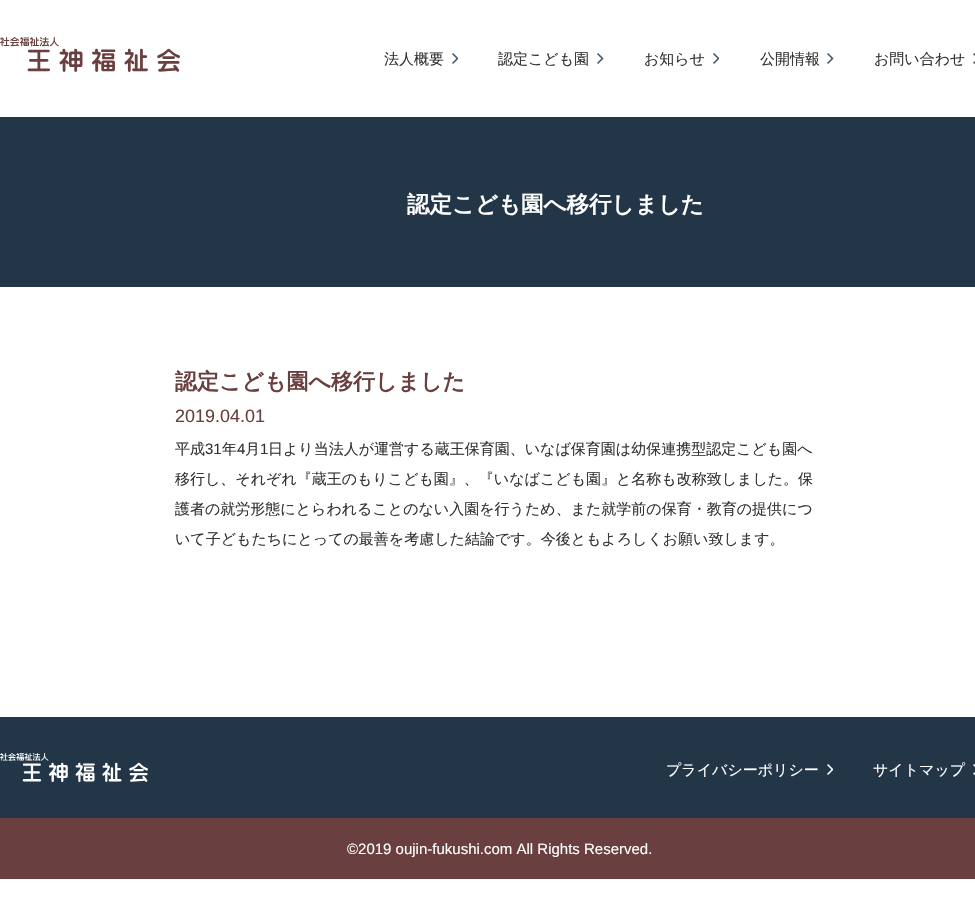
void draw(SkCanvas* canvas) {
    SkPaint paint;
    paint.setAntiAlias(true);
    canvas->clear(0xFFFFFFFF);
    canvas->drawImageRect(SkImages::DeferredFromEncodedData(SkData::MakeFromFileName("img1.png")), SkRect::MakeXYWH(0, 37, 180, 35), SkSamplingOptions());
    SkFont font1(fontMgr->matchFamilyStyle("WenQuanYi Zen Hei", SkFontStyle(500, SkFontStyle::kNormal_Width, SkFontStyle::kUpright_Slant)), 15);
    font1.setSubpixel(true);
    paint.setColor(0xFF333333);
    canvas->drawString("法人概要", 384, 64, font1, paint);
    canvas->drawImageRect(SkImages::DeferredFromEncodedData(SkData::MakeFromFileName("img2.png")), SkRect::MakeXYWH(452, 53, 6, 11), SkSamplingOptions());
    canvas->drawString("認定こども園", 498, 64, font1, paint);
    canvas->drawImageRect(SkImages::DeferredFromEncodedData(SkData::MakeFromFileName("img3.png")), SkRect::MakeXYWH(597, 53, 7, 11), SkSamplingOptions());
    canvas->drawString("お知らせ", 644, 64, font1, paint);
    canvas->drawImageRect(SkImages::DeferredFromEncodedData(SkData::MakeFromFileName("img2.png")), SkRect::MakeXYWH(713, 53, 6, 11), SkSamplingOptions());
    canvas->drawString("公開情報", 760, 64, font1, paint);
    canvas->drawImageRect(SkImages::DeferredFromEncodedData(SkData::MakeFromFileName("img3.png")), SkRect::MakeXYWH(827, 53, 7, 11), SkSamplingOptions());
    canvas->drawString("お問い合わせ", 874, 64, font1, paint);
    canvas->drawImageRect(SkImages::DeferredFromEncodedData(SkData::MakeFromFileName("img4.png")), SkRect::MakeXYWH(973, 53, 2, 11), SkSamplingOptions());
    paint.setColor(0xFF223648);
    canvas->drawRect(SkRect::MakeXYWH(0, 117, 975, 170), paint);
    SkFont font2(fontMgr->matchFamilyStyle("WenQuanYi Zen Hei", SkFontStyle::Bold()), 22.5f);
    font2.setSubpixel(true);
    paint.setColor(0xFFFFFFFF);
    canvas->drawString("認定こども園へ移行しました", 407, 212, font2, paint);
    SkFont font3(fontMgr->matchFamilyStyle("WenQuanYi Zen Hei", SkFontStyle::Bold()), 22);
    font3.setSubpixel(true);
    paint.setColor(0xFF693F3F);
    canvas->drawString("認定こども園へ移行しました", 175, 389, font3, paint);
    SkFont font4(fontMgr->matchFamilyStyle("Liberation Sans", SkFontStyle::Normal()), 18);
    font4.setSubpixel(true);
    canvas->drawString("2019.04.01", 175, 422, font4, paint);
    paint.setColor(0xFF333333);
    canvas->drawString("平成", 175, 454, font1, paint);
    SkFont font5(fontMgr->matchFamilyStyle("Liberation Sans", SkFontStyle::Normal()), 15);
    font5.setSubpixel(true);
    canvas->drawString("31", 205, 454, font5, paint);
    canvas->drawString("年", 222, 454, font1, paint);
    canvas->drawString("4", 237, 454, font5, paint);
    canvas->drawString("月", 245, 454, font1, paint);
    canvas->drawString("1", 260, 454, font5, paint);
    canvas->drawString("日より当法人が運営する蔵王保育園、いなば保育園は幼保連携型認定こども園へ", 268, 454, font1, paint);
    canvas->drawString("移行し、それぞれ『蔵王のもりこども園』、『いなばこども園』と名称も改称致しました。保", 175, 484, font1, paint);
    canvas->drawString("護者の就労形態にとらわれることのない入園を行うため、また就学前の保育・教育の提供につ", 175, 514, font1, paint);
    canvas->drawString("いて子どもたちにとっての最善を考慮した結論です。今後ともよろしくお願い致します。", 175, 544, font1, paint);
    paint.setColor(0xFF223648);
    canvas->drawRect(SkRect::MakeXYWH(0, 717, 975, 101), paint);
    canvas->drawImageRect(SkImages::DeferredFromEncodedData(SkData::MakeFromFileName("img5.png")), SkRect::MakeXYWH(0, 753, 148, 29), SkSamplingOptions());
    paint.setColor(0xFFFFFFFF);
    canvas->drawString("プライバシーポリシー", 666, 775, font1, paint);
    canvas->drawImageRect(SkImages::DeferredFromEncodedData(SkData::MakeFromFileName("img6.png")), SkRect::MakeXYWH(827, 764, 6, 11), SkSamplingOptions());
    canvas->drawString("サイトマップ", 873, 775, font1, paint);
    canvas->drawImageRect(SkImages::DeferredFromEncodedData(SkData::MakeFromFileName("img7.png")), SkRect::MakeXYWH(973, 764, 2, 11), SkSamplingOptions());
    paint.setColor(0xFF693F3F);
    canvas->drawRect(SkRect::MakeXYWH(0, 818, 975, 61), paint);
    paint.setColor(0xFFFFFFFF);
    canvas->drawString("©2019 oujin-fukushi.com All Rights Reserved.", 347, 854, font5, paint);
}
